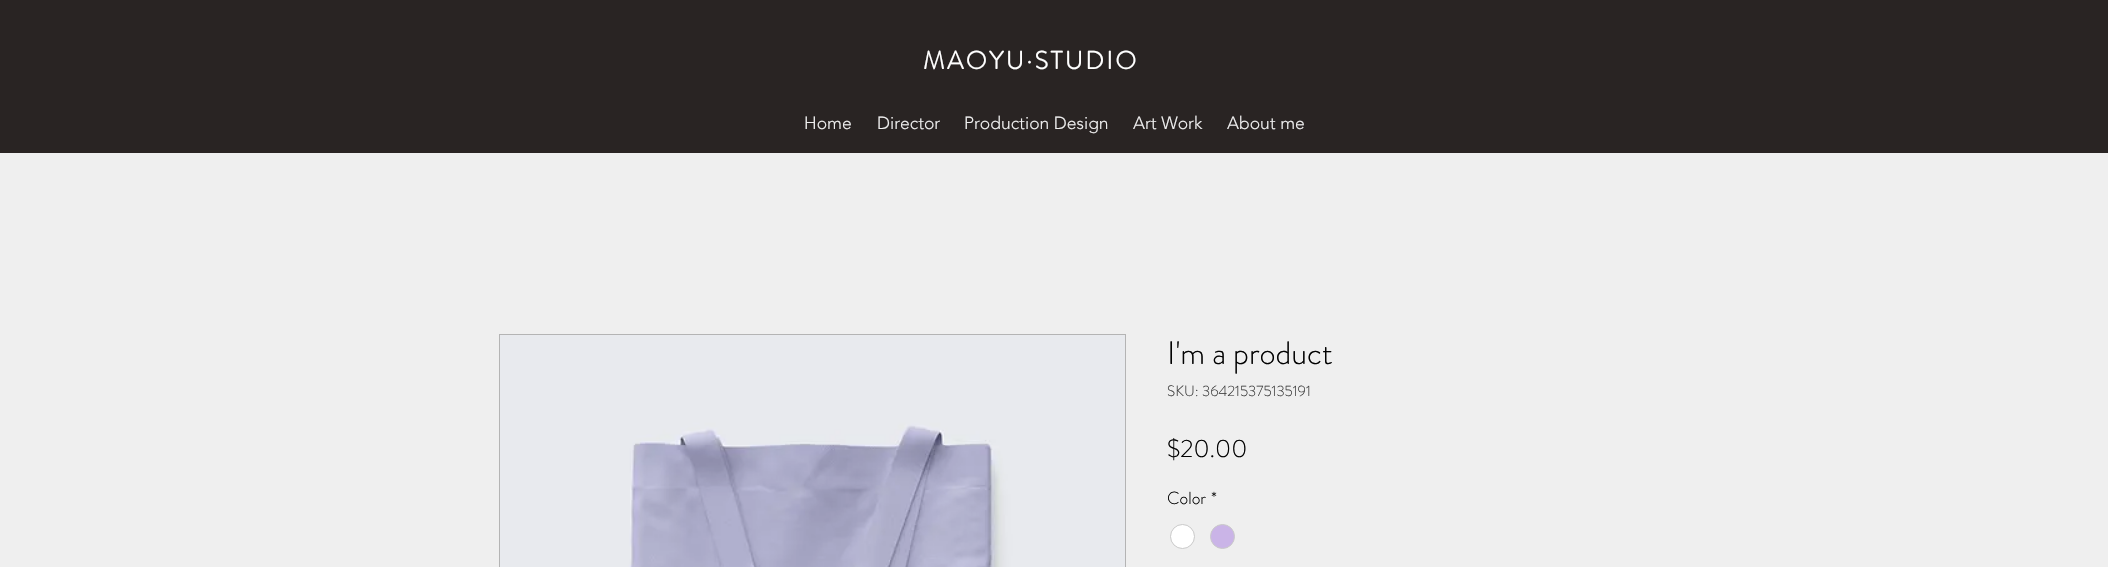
void draw(SkCanvas* canvas) {
    SkPaint paint;
    paint.setAntiAlias(true);
    auto spacedText = [&](const char* s, float x, float y, const SkFont& font, const SkPaint& ink, float letter, float word) {
        std::vector<SkGlyphID> glyphs(font.countText(s, strlen(s), SkTextEncoding::kUTF8));
        std::vector<float> xs(glyphs.size());
        font.textToGlyphs(s, strlen(s), SkTextEncoding::kUTF8, glyphs);
        font.getXPos(glyphs, xs, x);
        float extra = 0;
        for (size_t i = 0; i < glyphs.size(); i++) {
            xs[i] += extra;
            extra += letter + word * (glyphs[i] == font.unicharToGlyph(' '));
        }
        canvas->drawTextBlob(SkTextBlob::MakeFromPosHGlyphs(glyphs, xs, y, font), 0, 0, ink);
    };
    canvas->clear(0xFFEFEFEF);
    paint.setColor(0xFF292423);
    canvas->drawRect(SkRect::MakeXYWH(0, 0, 2108, 153), paint);
    SkFont font1(fontMgr->matchFamilyStyle("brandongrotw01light", SkFontStyle::Bold()), 25);
    font1.setSubpixel(true);
    paint.setColor(0xFFFFFFFF);
    spacedText("MAOYU·STUDIO", 923, 69, font1, paint, 2.5f, 0);
    SkFont font2(fontMgr->matchFamilyStyle("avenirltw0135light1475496", SkFontStyle(300, SkFontStyle::kNormal_Width, SkFontStyle::kUpright_Slant)), 17.5f);
    font2.setSubpixel(true);
    paint.setColor(0xFFEFEFEF);
    canvas->drawString("Home", 804, 129, font2, paint);
    canvas->drawString("Director", 877, 129, font2, paint);
    canvas->drawString("Production Design", 964, 129, font2, paint);
    canvas->drawString("Art Work", 1133, 129, font2, paint);
    canvas->drawString("About me", 1227, 129, font2, paint);
    paint.setStyle(SkPaint::kStroke_Style);
    paint.setStrokeWidth(1);
    paint.setColor(0xFFB4B4B4);
    canvas->drawRect(SkRect::MakeXYWH(499.5f, 334.5f, 626, 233), paint);
    canvas->drawImageRect(SkImages::DeferredFromEncodedData(SkData::MakeFromFileName("img1.png")), SkRect::MakeXYWH(500, 335, 625, 232), SkSamplingOptions());
    SkFont font3(fontMgr->matchFamilyStyle("brandongrotw01light", SkFontStyle(300, SkFontStyle::kNormal_Width, SkFontStyle::kUpright_Slant)), 32.5f);
    font3.setSubpixel(true);
    paint.setStyle(SkPaint::kFill_Style);
    paint.setColor(0xFF020202);
    canvas->drawString("I'm a product", 1167, 364, font3, paint);
    SkFont font4(fontMgr->matchFamilyStyle("brandongrotw01light", SkFontStyle(300, SkFontStyle::kNormal_Width, SkFontStyle::kUpright_Slant)), 15);
    font4.setSubpixel(true);
    paint.setColor(0xFF3D3D3D);
    canvas->drawString("SKU: 364215375135191", 1167, 396, font4, paint);
    SkFont font5(fontMgr->matchFamilyStyle("brandongrotw01light", SkFontStyle(300, SkFontStyle::kNormal_Width, SkFontStyle::kUpright_Slant)), 25);
    font5.setSubpixel(true);
    paint.setColor(0xFF020202);
    canvas->drawString("$20.00", 1167, 457, font5, paint);
    SkFont font6(fontMgr->matchFamilyStyle("brandongrotw01light", SkFontStyle(300, SkFontStyle::kNormal_Width, SkFontStyle::kUpright_Slant)), 17.5f);
    font6.setSubpixel(true);
    canvas->drawString("Color", 1167, 504, font6, paint);
    canvas->drawString("*", 1211, 504, font6, paint);
    paint.setColor(0xFFFFFFFF);
    canvas->drawCircle(1182.5f, 536.5f, 12, paint);
    paint.setStyle(SkPaint::kStroke_Style);
    paint.setColor(0xFFC9C9C9);
    canvas->drawCircle(1182.5f, 536.5f, 12, paint);
    paint.setStyle(SkPaint::kFill_Style);
    paint.setColor(0xFFCAB4E7);
    canvas->drawCircle(1222.5f, 536.5f, 12, paint);
    paint.setStyle(SkPaint::kStroke_Style);
    paint.setColor(0xFFC9C9C9);
    canvas->drawCircle(1222.5f, 536.5f, 12, paint);
}
